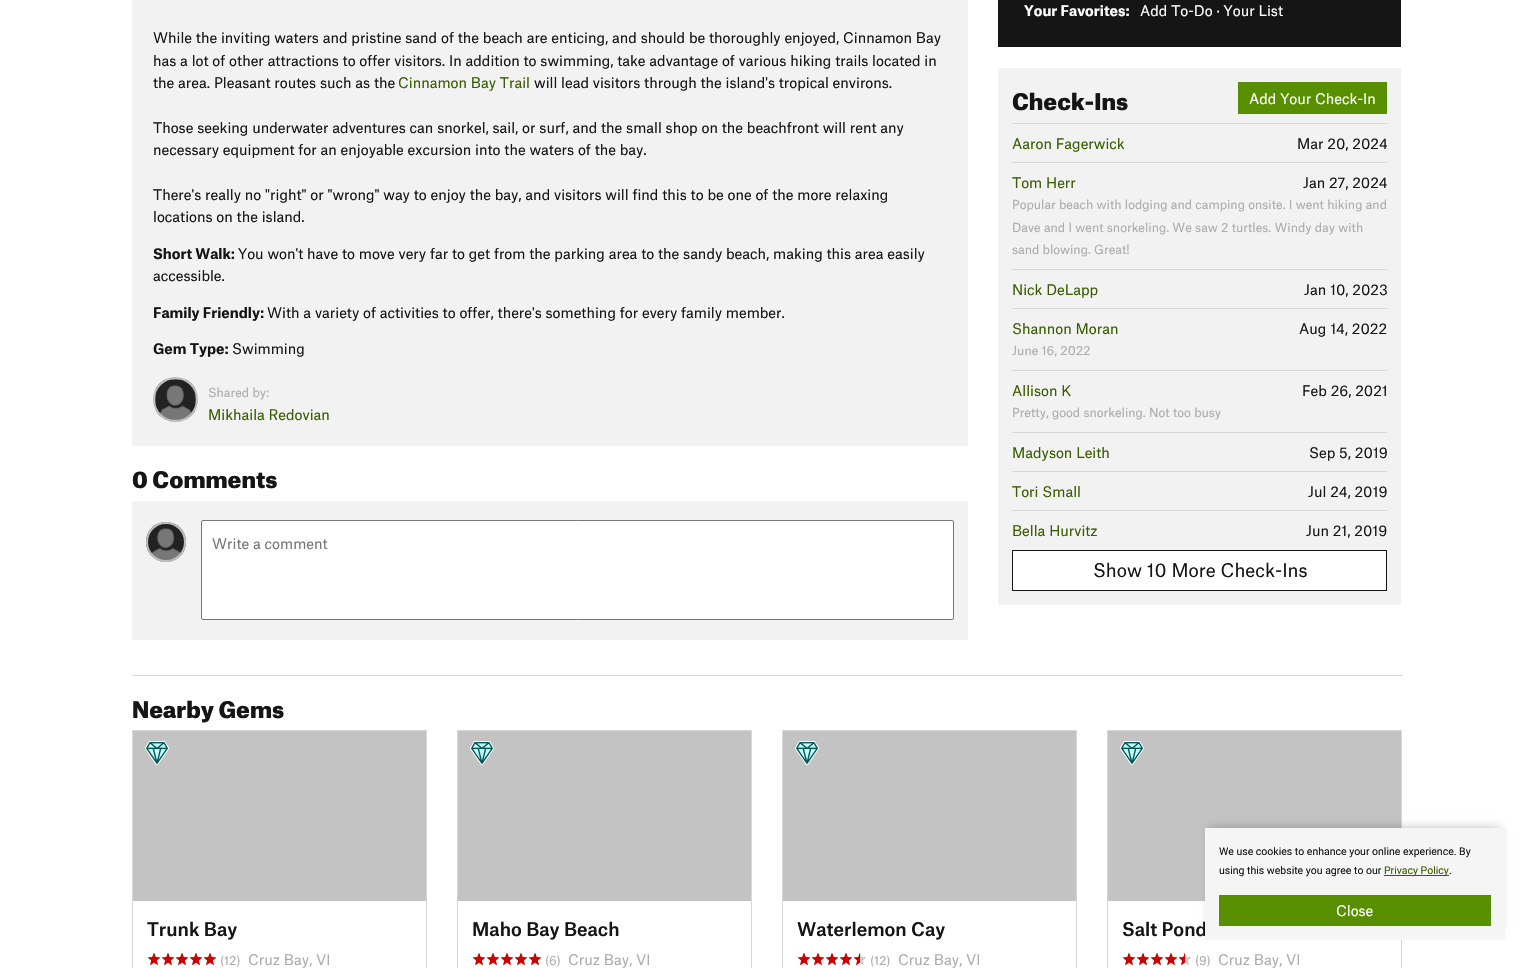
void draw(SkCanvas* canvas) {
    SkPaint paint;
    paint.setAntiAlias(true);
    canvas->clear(0xFFFFFFFF);
    paint.setColor(0xFFF2F2F2);
    canvas->drawRect(SkRect::MakeXYWH(132, 0, 836, 446), paint);
    SkFont font1(fontMgr->matchFamilyStyle("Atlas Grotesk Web", SkFontStyle::Normal()), 14);
    font1.setSubpixel(true);
    paint.setColor(0xFF151515);
    canvas->drawString("While the inviting waters and pristine sand of the beach are enticing, and should be thoroughly enjoyed, Cinnamon Bay", 153, 43, font1, paint);
    canvas->drawString("has a lot of other attractions to offer visitors. In addition to swimming, take advantage of various hiking trails located in", 153, 66, font1, paint);
    canvas->drawString("the area. Pleasant routes such as the", 153, 88, font1, paint);
    paint.setColor(0xFF395C00);
    canvas->drawString("Cinnamon Bay Trail", 398, 88, font1, paint);
    paint.setColor(0xFF151515);
    canvas->drawString("will lead visitors through the island's tropical environs.", 534, 88, font1, paint);
    canvas->drawString("Those seeking underwater adventures can snorkel, sail, or surf, and the small shop on the beachfront will rent any", 153, 133, font1, paint);
    canvas->drawString("necessary equipment for an enjoyable excursion into the waters of the bay.", 153, 155, font1, paint);
    canvas->drawString("There's really no \"right\" or \"wrong\" way to enjoy the bay, and visitors will find this to be one of the more relaxing", 153, 200, font1, paint);
    canvas->drawString("locations on the island.", 153, 222, font1, paint);
    SkFont font2(fontMgr->matchFamilyStyle("Atlas Grotesk Web", SkFontStyle::Bold()), 14);
    font2.setSubpixel(true);
    canvas->drawString("Short Walk:", 153, 259, font2, paint);
    canvas->drawString("You won't have to move very far to get from the parking area to the sandy beach, making this area easily", 238, 259, font1, paint);
    canvas->drawString("accessible.", 153, 281, font1, paint);
    canvas->drawString("Family Friendly:", 153, 318, font2, paint);
    canvas->drawString("With a variety of activities to offer, there's something for every family member.", 267, 318, font1, paint);
    canvas->drawString("Gem Type:", 153, 354, font2, paint);
    canvas->drawString("Swimming", 232, 354, font1, paint);
    canvas->drawImageRect(SkImages::DeferredFromEncodedData(SkData::MakeFromFileName("img1.png")), SkRect::MakeXYWH(155, 379, 41, 41), SkSamplingOptions());
    paint.setStyle(SkPaint::kStroke_Style);
    paint.setStrokeWidth(2);
    paint.setColor(0xFFBDBDBD);
    canvas->drawCircle(175.5f, 399.5f, 21.5f, paint);
    SkFont font3(fontMgr->matchFamilyStyle("Atlas Grotesk Web", SkFontStyle::Normal()), 12);
    font3.setSubpixel(true);
    paint.setStyle(SkPaint::kFill_Style);
    paint.setColor(0xFFACACAC);
    canvas->drawString("Shared by:", 208, 397, font3, paint);
    paint.setColor(0xFF395C00);
    canvas->drawString("Mikhaila Redovian", 208, 420, font1, paint);
    SkFont font4(fontMgr->matchFamilyStyle("Atlas Grotesk Web", SkFontStyle(900, SkFontStyle::kNormal_Width, SkFontStyle::kUpright_Slant)), 22);
    font4.setSubpixel(true);
    paint.setColor(0xFF151515);
    canvas->drawString("0 Comments", 132, 488, font4, paint);
    paint.setColor(0xFFF2F2F2);
    canvas->drawRect(SkRect::MakeXYWH(132, 501, 836, 139), paint);
    canvas->drawImageRect(SkImages::DeferredFromEncodedData(SkData::MakeFromFileName("img2.png")), SkRect::MakeXYWH(146, 522, 40, 40), SkSamplingOptions());
    paint.setStyle(SkPaint::kStroke_Style);
    paint.setColor(0xFFBDBDBD);
    canvas->drawCircle(166, 542, 19, paint);
    paint.setStyle(SkPaint::kFill_Style);
    paint.setColor(0xFFFFFFFF);
    canvas->drawRoundRect(SkRect::MakeXYWH(201.5f, 520.5f, 752, 99), 1.5f, 1.5f, paint);
    paint.setStyle(SkPaint::kStroke_Style);
    paint.setStrokeWidth(1);
    paint.setColor(0xFF767676);
    canvas->drawRoundRect(SkRect::MakeXYWH(201.5f, 520.5f, 752, 99), 1.5f, 1.5f, paint);
    paint.setStyle(SkPaint::kFill_Style);
    paint.setColor(0xFF757575);
    canvas->drawString("Write a comment", 212, 549, font1, paint);
    paint.setColor(0xFF151515);
    canvas->drawRect(SkRect::MakeXYWH(998, 0, 403, 47), paint);
    paint.setColor(0xFFFFFFFF);
    canvas->drawString("Your Favorites:", 1024, 16, font2, paint);
    canvas->drawString("Add To-Do · Your List", 1140, 16, font1, paint);
    paint.setColor(0xFFF2F2F2);
    canvas->drawRect(SkRect::MakeXYWH(998, 68, 403, 537), paint);
    paint.setColor(0xFF151515);
    canvas->drawString("Check-Ins", 1012, 110, font4, paint);
    paint.setColor(0xFF588F00);
    canvas->drawRect(SkRect::MakeXYWH(1238, 82, 149, 32), paint);
    paint.setColor(0xFFFFFFFF);
    canvas->drawString("Add Your Check-In", 1249, 104, font1, paint);
    paint.setColor(0xFFD7D7D7);
    canvas->drawRect(SkRect::MakeXYWH(1012, 123, 375, 1), paint);
    paint.setColor(0xFF395C00);
    canvas->drawString("Aaron Fagerwick", 1012, 149, font1, paint);
    paint.setColor(0xFF151515);
    canvas->drawString("Mar 20, 2024", 1297, 149, font1, paint);
    paint.setColor(0xFFD7D7D7);
    canvas->drawRect(SkRect::MakeXYWH(1012, 162, 375, 1), paint);
    paint.setColor(0xFF395C00);
    canvas->drawString("Tom Herr", 1012, 188, font1, paint);
    paint.setColor(0xFF151515);
    canvas->drawString("Jan 27, 2024", 1303, 188, font1, paint);
    paint.setColor(0xFFACACAC);
    canvas->drawString("Popular beach with lodging and camping onsite. I went hiking and", 1012, 209, font3, paint);
    canvas->drawString("Dave and I went snorkeling. We saw 2 turtles. Windy day with", 1012, 232, font3, paint);
    canvas->drawString("sand blowing. Great!", 1012, 254, font3, paint);
    paint.setColor(0xFFD7D7D7);
    canvas->drawRect(SkRect::MakeXYWH(1012, 269, 375, 1), paint);
    paint.setColor(0xFF395C00);
    canvas->drawString("Nick DeLapp", 1012, 295, font1, paint);
    paint.setColor(0xFF151515);
    canvas->drawString("Jan 10, 2023", 1304, 295, font1, paint);
    paint.setColor(0xFFD7D7D7);
    canvas->drawRect(SkRect::MakeXYWH(1012, 308, 375, 1), paint);
    paint.setColor(0xFF395C00);
    canvas->drawString("Shannon Moran", 1012, 334, font1, paint);
    paint.setColor(0xFF151515);
    canvas->drawString("Aug 14, 2022", 1299, 334, font1, paint);
    paint.setColor(0xFFACACAC);
    canvas->drawString("June 16, 2022", 1012, 355, font3, paint);
    paint.setColor(0xFFD7D7D7);
    canvas->drawRect(SkRect::MakeXYWH(1012, 370, 375, 1), paint);
    paint.setColor(0xFF395C00);
    canvas->drawString("Allison K", 1012, 396, font1, paint);
    paint.setColor(0xFF151515);
    canvas->drawString("Feb 26, 2021", 1302, 396, font1, paint);
    paint.setColor(0xFFACACAC);
    canvas->drawString("Pretty, good snorkeling. Not too busy", 1012, 417, font3, paint);
    paint.setColor(0xFFD7D7D7);
    canvas->drawRect(SkRect::MakeXYWH(1012, 432, 375, 1), paint);
    paint.setColor(0xFF395C00);
    canvas->drawString("Madyson Leith", 1012, 458, font1, paint);
    paint.setColor(0xFF151515);
    canvas->drawString("Sep 5, 2019", 1309, 458, font1, paint);
    paint.setColor(0xFFD7D7D7);
    canvas->drawRect(SkRect::MakeXYWH(1012, 471, 375, 1), paint);
    paint.setColor(0xFF395C00);
    canvas->drawString("Tori Small", 1012, 497, font1, paint);
    paint.setColor(0xFF151515);
    canvas->drawString("Jul 24, 2019", 1308, 497, font1, paint);
    paint.setColor(0xFFD7D7D7);
    canvas->drawRect(SkRect::MakeXYWH(1012, 510, 375, 1), paint);
    paint.setColor(0xFF395C00);
    canvas->drawString("Bella Hurvitz", 1012, 536, font1, paint);
    paint.setColor(0xFF151515);
    canvas->drawString("Jun 21, 2019", 1306, 536, font1, paint);
    paint.setColor(0xFFFFFFFF);
    canvas->drawRect(SkRect::MakeXYWH(1012.5f, 550.5f, 374, 40), paint);
    paint.setStyle(SkPaint::kStroke_Style);
    paint.setColor(0xFF151515);
    canvas->drawRect(SkRect::MakeXYWH(1012.5f, 550.5f, 374, 40), paint);
    SkFont font5(fontMgr->matchFamilyStyle("Atlas Grotesk Web", SkFontStyle::Normal()), 18);
    font5.setSubpixel(true);
    paint.setStyle(SkPaint::kFill_Style);
    canvas->drawString("Show 10 More Check-Ins", 1093, 577, font5, paint);
    paint.setColor(0xFFD7D7D7);
    canvas->drawRect(SkRect::MakeXYWH(132, 675, 1270, 1), paint);
    paint.setColor(0xFF151515);
    canvas->drawString("Nearby Gems", 132, 718, font4, paint);
    paint.setStyle(SkPaint::kStroke_Style);
    paint.setColor(0xFFD7D7D7);
    canvas->drawRect(SkRect::MakeXYWH(132.5f, 730.5f, 294, 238), paint);
    paint.setStyle(SkPaint::kFill_Style);
    paint.setColor(0xFFC3C3C3);
    canvas->drawRect(SkRect::MakeXYWH(133, 731, 293, 170), paint);
    canvas->drawImageRect(SkImages::DeferredFromEncodedData(SkData::MakeFromFileName("img3.png")), SkRect::MakeXYWH(145, 741, 24, 24), SkSamplingOptions());
    SkFont font6(fontMgr->matchFamilyStyle("Atlas Grotesk Web", SkFontStyle(500, SkFontStyle::kNormal_Width, SkFontStyle::kUpright_Slant)), 18);
    font6.setSubpixel(true);
    paint.setColor(0xFF151515);
    canvas->drawString("Trunk Bay", 147, 936, font6, paint);
    canvas->drawImageRect(SkImages::DeferredFromEncodedData(SkData::MakeFromFileName("img4.png")), SkRect::MakeXYWH(148, 953, 12, 12), SkSamplingOptions());
    canvas->drawImageRect(SkImages::DeferredFromEncodedData(SkData::MakeFromFileName("img4.png")), SkRect::MakeXYWH(162, 953, 12, 12), SkSamplingOptions());
    canvas->drawImageRect(SkImages::DeferredFromEncodedData(SkData::MakeFromFileName("img4.png")), SkRect::MakeXYWH(176, 953, 12, 12), SkSamplingOptions());
    canvas->drawImageRect(SkImages::DeferredFromEncodedData(SkData::MakeFromFileName("img4.png")), SkRect::MakeXYWH(190, 953, 12, 12), SkSamplingOptions());
    canvas->drawImageRect(SkImages::DeferredFromEncodedData(SkData::MakeFromFileName("img4.png")), SkRect::MakeXYWH(204, 953, 12, 12), SkSamplingOptions());
    paint.setColor(0xFFACACAC);
    canvas->drawString("(12)", 220, 965, font3, paint);
    canvas->drawString("Cruz Bay, VI", 248, 965, font1, paint);
    paint.setStyle(SkPaint::kStroke_Style);
    paint.setColor(0xFFD7D7D7);
    canvas->drawRect(SkRect::MakeXYWH(457.5f, 730.5f, 294, 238), paint);
    paint.setStyle(SkPaint::kFill_Style);
    paint.setColor(0xFFC3C3C3);
    canvas->drawRect(SkRect::MakeXYWH(458, 731, 293, 170), paint);
    canvas->drawImageRect(SkImages::DeferredFromEncodedData(SkData::MakeFromFileName("img3.png")), SkRect::MakeXYWH(470, 741, 24, 24), SkSamplingOptions());
    paint.setColor(0xFF151515);
    canvas->drawString("Maho Bay Beach", 472, 936, font6, paint);
    canvas->drawImageRect(SkImages::DeferredFromEncodedData(SkData::MakeFromFileName("img4.png")), SkRect::MakeXYWH(473, 953, 12, 12), SkSamplingOptions());
    canvas->drawImageRect(SkImages::DeferredFromEncodedData(SkData::MakeFromFileName("img4.png")), SkRect::MakeXYWH(487, 953, 12, 12), SkSamplingOptions());
    canvas->drawImageRect(SkImages::DeferredFromEncodedData(SkData::MakeFromFileName("img4.png")), SkRect::MakeXYWH(501, 953, 12, 12), SkSamplingOptions());
    canvas->drawImageRect(SkImages::DeferredFromEncodedData(SkData::MakeFromFileName("img4.png")), SkRect::MakeXYWH(515, 953, 12, 12), SkSamplingOptions());
    canvas->drawImageRect(SkImages::DeferredFromEncodedData(SkData::MakeFromFileName("img4.png")), SkRect::MakeXYWH(529, 953, 12, 12), SkSamplingOptions());
    paint.setColor(0xFFACACAC);
    canvas->drawString("(6)", 545, 965, font3, paint);
    canvas->drawString("Cruz Bay, VI", 568, 965, font1, paint);
    paint.setStyle(SkPaint::kStroke_Style);
    paint.setColor(0xFFD7D7D7);
    canvas->drawRect(SkRect::MakeXYWH(782.5f, 730.5f, 294, 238), paint);
    paint.setStyle(SkPaint::kFill_Style);
    paint.setColor(0xFFC3C3C3);
    canvas->drawRect(SkRect::MakeXYWH(783, 731, 293, 170), paint);
    canvas->drawImageRect(SkImages::DeferredFromEncodedData(SkData::MakeFromFileName("img3.png")), SkRect::MakeXYWH(795, 741, 24, 24), SkSamplingOptions());
    paint.setColor(0xFF151515);
    canvas->drawString("Waterlemon Cay", 797, 936, font6, paint);
    canvas->drawImageRect(SkImages::DeferredFromEncodedData(SkData::MakeFromFileName("img4.png")), SkRect::MakeXYWH(798, 953, 12, 12), SkSamplingOptions());
    canvas->drawImageRect(SkImages::DeferredFromEncodedData(SkData::MakeFromFileName("img4.png")), SkRect::MakeXYWH(812, 953, 12, 12), SkSamplingOptions());
    canvas->drawImageRect(SkImages::DeferredFromEncodedData(SkData::MakeFromFileName("img4.png")), SkRect::MakeXYWH(826, 953, 12, 12), SkSamplingOptions());
    canvas->drawImageRect(SkImages::DeferredFromEncodedData(SkData::MakeFromFileName("img4.png")), SkRect::MakeXYWH(840, 953, 12, 12), SkSamplingOptions());
    canvas->drawImageRect(SkImages::DeferredFromEncodedData(SkData::MakeFromFileName("img5.png")), SkRect::MakeXYWH(854, 953, 12, 12), SkSamplingOptions());
    paint.setColor(0xFFACACAC);
    canvas->drawString("(12)", 870, 965, font3, paint);
    canvas->drawString("Cruz Bay, VI", 898, 965, font1, paint);
    paint.setStyle(SkPaint::kStroke_Style);
    paint.setColor(0xFFD7D7D7);
    canvas->drawRect(SkRect::MakeXYWH(1107.5f, 730.5f, 294, 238), paint);
    paint.setStyle(SkPaint::kFill_Style);
    paint.setColor(0xFFC3C3C3);
    canvas->drawRect(SkRect::MakeXYWH(1108, 731, 293, 170), paint);
    canvas->drawImageRect(SkImages::DeferredFromEncodedData(SkData::MakeFromFileName("img3.png")), SkRect::MakeXYWH(1120, 741, 24, 24), SkSamplingOptions());
    paint.setColor(0xFF151515);
    canvas->drawString("Salt Pond", 1122, 936, font6, paint);
    canvas->drawImageRect(SkImages::DeferredFromEncodedData(SkData::MakeFromFileName("img4.png")), SkRect::MakeXYWH(1123, 953, 12, 12), SkSamplingOptions());
    canvas->drawImageRect(SkImages::DeferredFromEncodedData(SkData::MakeFromFileName("img4.png")), SkRect::MakeXYWH(1137, 953, 12, 12), SkSamplingOptions());
    canvas->drawImageRect(SkImages::DeferredFromEncodedData(SkData::MakeFromFileName("img4.png")), SkRect::MakeXYWH(1151, 953, 12, 12), SkSamplingOptions());
    canvas->drawImageRect(SkImages::DeferredFromEncodedData(SkData::MakeFromFileName("img4.png")), SkRect::MakeXYWH(1165, 953, 12, 12), SkSamplingOptions());
    canvas->drawImageRect(SkImages::DeferredFromEncodedData(SkData::MakeFromFileName("img5.png")), SkRect::MakeXYWH(1179, 953, 12, 12), SkSamplingOptions());
    paint.setColor(0xFFACACAC);
    canvas->drawString("(9)", 1195, 965, font3, paint);
    canvas->drawString("Cruz Bay, VI", 1218, 965, font1, paint);
    paint.setColor(0x40000000);
    paint.setMaskFilter(SkMaskFilter::MakeBlur(kNormal_SkBlurStyle, 5));
    canvas->drawRect(SkRect::MakeXYWH(1210, 828, 290, 102), paint);
    paint.setMaskFilter(nullptr);
    paint.setColor(0xFFF5F5F5);
    canvas->drawRect(SkRect::MakeXYWH(1205, 828, 300, 112), paint);
    SkFont font7(fontMgr->matchFamilyStyle("Roboto", SkFontStyle::Normal()), 10.5f);
    font7.setSubpixel(true);
    paint.setColor(0xFF151515);
    canvas->drawString("We use cookies to enhance your online experience. By", 1219, 855, font7, paint);
    canvas->drawString("using this website you agree to our", 1219, 874, font7, paint);
    paint.setColor(0xFF395C00);
    canvas->drawRect(SkRect::MakeXYWH(1384, 875, 65, 1), paint);
    canvas->drawString("Privacy Policy", 1384, 874, font7, paint);
    paint.setColor(0xFF151515);
    canvas->drawString(".", 1449, 874, font7, paint);
    paint.setColor(0xFF588F00);
    canvas->drawRect(SkRect::MakeXYWH(1219, 895, 272, 31), paint);
    paint.setColor(0xFFFFFFFF);
    canvas->drawString("Close", 1336, 916, font1, paint);
}
